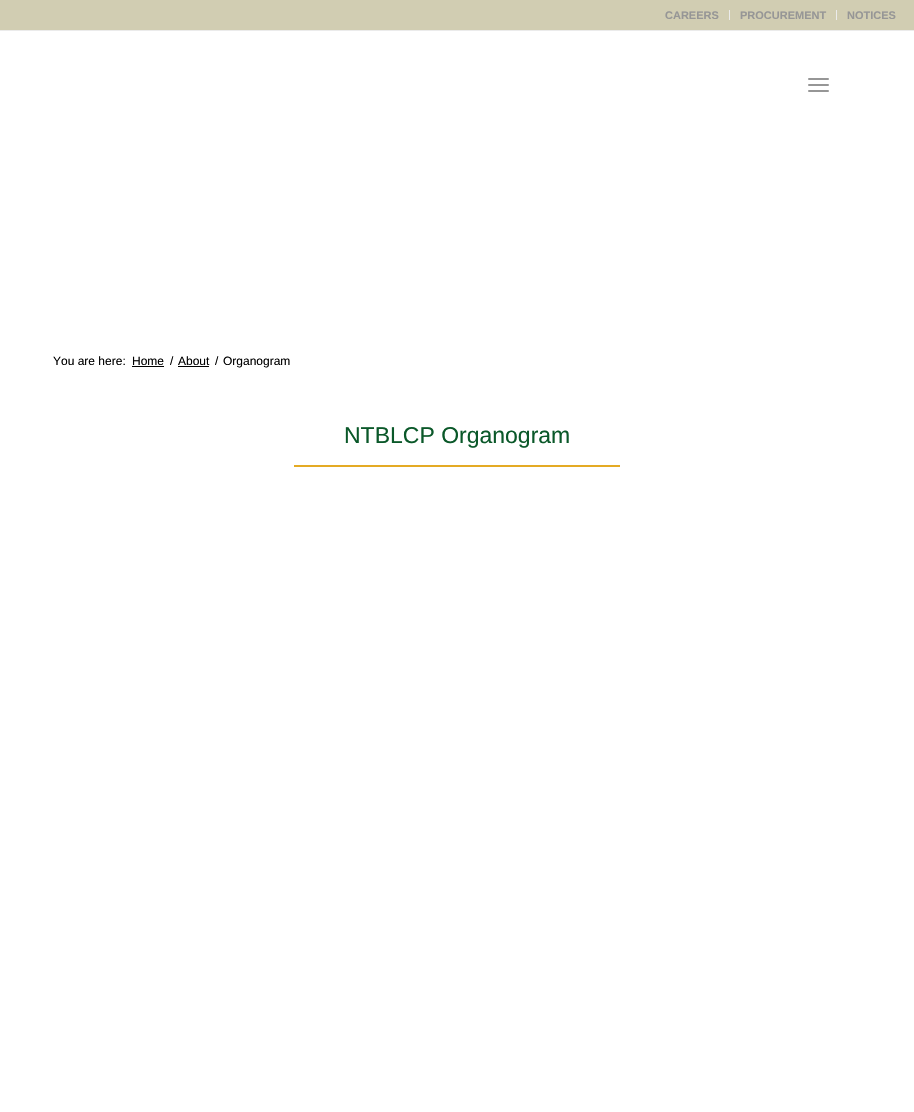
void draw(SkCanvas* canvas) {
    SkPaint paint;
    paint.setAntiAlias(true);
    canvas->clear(0xFFFFFFFF);
    paint.setColor(0xFFD1CDB2);
    canvas->drawRect(SkRect::MakeXYWH(0, 0, 914, 30), paint);
    paint.setColor(0xFFEBEBEB);
    canvas->drawRect(SkRect::MakeXYWH(0, 30, 914, 1), paint);
    canvas->drawRect(SkRect::MakeXYWH(729, 10, 1, 10), paint);
    SkFont font1(fontMgr->matchFamilyStyle("Liberation Sans", SkFontStyle::Bold()), 11);
    font1.setSubpixel(true);
    paint.setColor(0xFF969696);
    canvas->drawString("CAREERS", 665, 19, font1, paint);
    paint.setColor(0xFFEBEBEB);
    canvas->drawRect(SkRect::MakeXYWH(836, 10, 1, 10), paint);
    paint.setColor(0xFF969696);
    canvas->drawString("PROCUREMENT", 740, 19, font1, paint);
    canvas->drawString("NOTICES", 847, 19, font1, paint);
    canvas->drawRoundRect(SkRect::MakeXYWH(808, 84, 21, 2), 1, 1, paint);
    canvas->drawRoundRect(SkRect::MakeXYWH(808, 78, 21, 2), 1, 1, paint);
    canvas->drawRoundRect(SkRect::MakeXYWH(808, 90, 21, 2), 1, 1, paint);
    SkFont font2(fontMgr->matchFamilyStyle("Liberation Sans", SkFontStyle::Normal()), 12);
    font2.setSubpixel(true);
    paint.setColor(0xFF000000);
    canvas->drawString("You are here:", 53, 365, font2, paint);
    canvas->drawString("Home", 132, 365, font2, paint);
    canvas->drawRect(SkRect::MakeXYWH(132, 366, 32, 1), paint);
    canvas->drawString("/", 170, 365, font2, paint);
    canvas->drawString("About", 178, 365, font2, paint);
    canvas->drawRect(SkRect::MakeXYWH(178, 366, 31, 1), paint);
    canvas->drawString("/", 215, 365, font2, paint);
    canvas->drawString("Organogram", 223, 365, font2, paint);
    SkFont font3(fontMgr->matchFamilyStyle("Liberation Sans", SkFontStyle::Normal()), 23);
    font3.setSubpixel(true);
    paint.setColor(0xFF0A5829);
    canvas->drawString("NTBLCP Organogram", 344, 443, font3, paint);
    paint.setColor(0xFFE4AA24);
    canvas->drawRect(SkRect::MakeXYWH(294, 465, 326, 2), paint);
}
